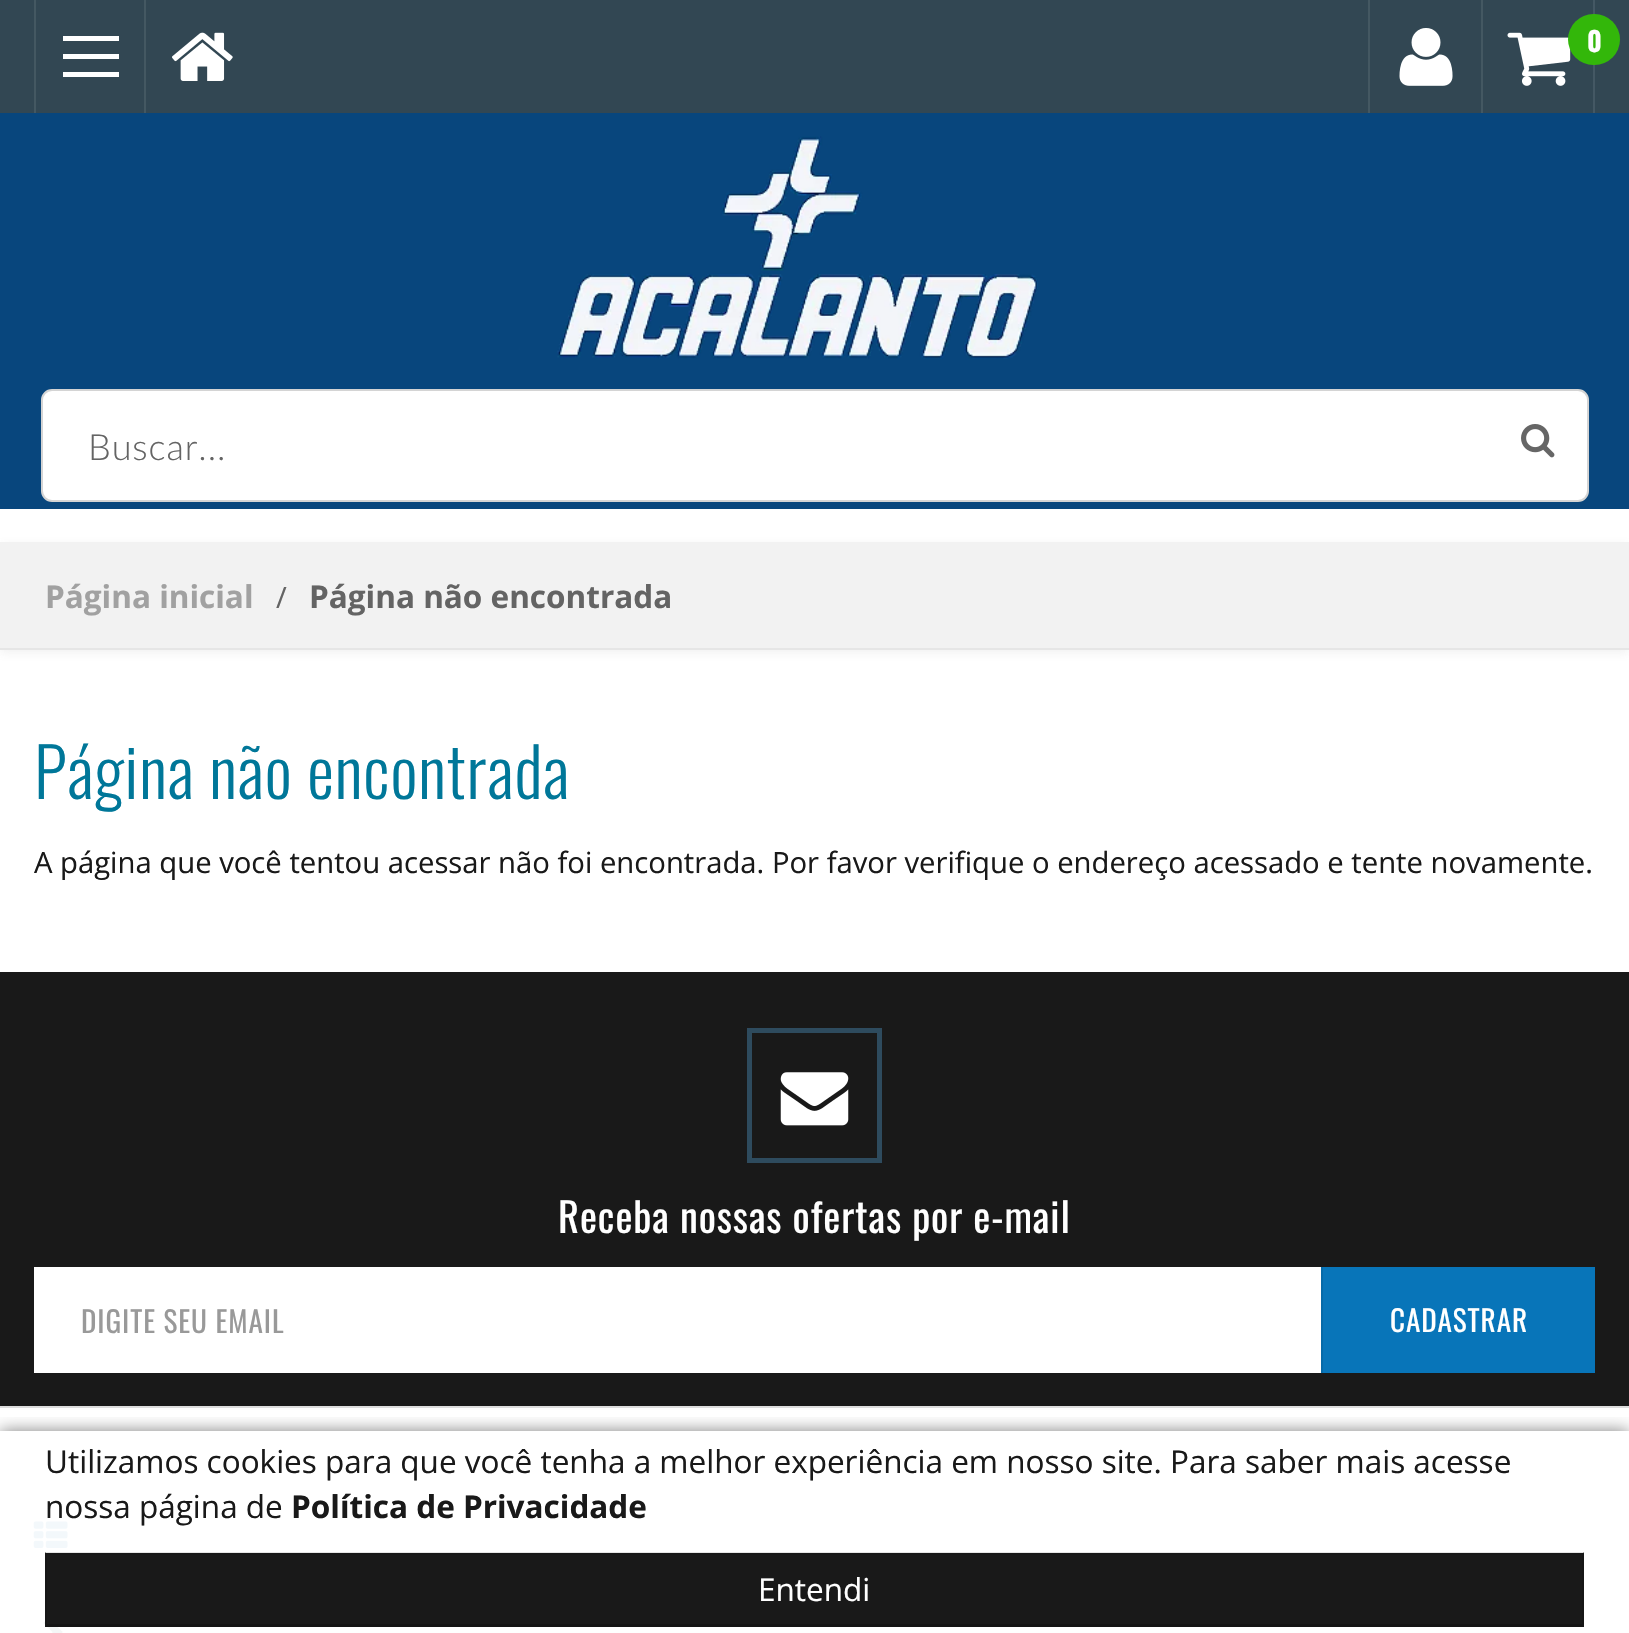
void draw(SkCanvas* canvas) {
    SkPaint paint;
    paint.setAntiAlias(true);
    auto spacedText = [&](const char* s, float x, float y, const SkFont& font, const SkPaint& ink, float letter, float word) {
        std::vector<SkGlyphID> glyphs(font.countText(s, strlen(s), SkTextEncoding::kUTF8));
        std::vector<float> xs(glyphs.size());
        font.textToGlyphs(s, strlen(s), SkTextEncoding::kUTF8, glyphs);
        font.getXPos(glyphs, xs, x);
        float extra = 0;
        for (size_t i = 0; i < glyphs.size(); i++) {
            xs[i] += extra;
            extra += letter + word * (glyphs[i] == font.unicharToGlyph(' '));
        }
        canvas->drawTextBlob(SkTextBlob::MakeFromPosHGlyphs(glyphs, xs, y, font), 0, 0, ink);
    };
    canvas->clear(0xFFFFFFFF);
    paint.setColor(0xFF324753);
    canvas->drawRect(SkRect::MakeXYWH(0, 0, 1629, 113), paint);
    canvas->drawImageRect(SkImages::DeferredFromEncodedData(SkData::MakeFromFileName("img1.png")), SkRect::MakeXYWH(172, 32, 61, 49), SkSamplingOptions());
    paint.setColor(0xFF445862);
    canvas->drawRect(SkRect::MakeXYWH(1368, 0, 2, 113), paint);
    canvas->drawRect(SkRect::MakeXYWH(1481, 0, 2, 113), paint);
    canvas->drawImageRect(SkImages::DeferredFromEncodedData(SkData::MakeFromFileName("img2.png")), SkRect::MakeXYWH(1399, 28, 54, 58), SkSamplingOptions());
    paint.setColor(0xFF445864);
    canvas->drawRect(SkRect::MakeXYWH(1593, 0, 2, 113), paint);
    canvas->drawImageRect(SkImages::DeferredFromEncodedData(SkData::MakeFromFileName("img3.png")), SkRect::MakeXYWH(1507, 32, 64, 54), SkSamplingOptions());
    paint.setColor(0xFF33B70A);
    canvas->drawRoundRect(SkRect::MakeXYWH(1568, 14, 52, 51), 25.5f, 25.5f, paint);
    SkFont font1(fontMgr->matchFamilyStyle("Oswald", SkFontStyle::Bold()), 27);
    font1.setSubpixel(true);
    paint.setColor(0xFFFFFFFF);
    spacedText("0", 1587, 52, font1, paint, 0.9f, 0);
    paint.setColor(0xFF08467D);
    canvas->drawRect(SkRect::MakeXYWH(0, 113, 1629, 396), paint);
    canvas->drawImageRect(SkImages::DeferredFromEncodedData(SkData::MakeFromFileName("img4.png")), SkRect::MakeXYWH(557, 136, 481, 223), SkSamplingOptions());
    paint.setColor(0xFF445862);
    canvas->drawRect(SkRect::MakeXYWH(144, 0, 2, 113), paint);
    canvas->drawRect(SkRect::MakeXYWH(34, 0, 2, 113), paint);
    paint.setColor(0xFFFFFFFF);
    canvas->drawRect(SkRect::MakeXYWH(63, 36, 56, 5), paint);
    canvas->drawRect(SkRect::MakeXYWH(63, 72, 56, 5), paint);
    canvas->drawRect(SkRect::MakeXYWH(63, 54, 56, 5), paint);
    canvas->drawRoundRect(SkRect::MakeXYWH(42, 390, 1546, 111), 10, 10, paint);
    paint.setStyle(SkPaint::kStroke_Style);
    paint.setStrokeWidth(2);
    paint.setColor(0xFFD4D4D4);
    canvas->drawRoundRect(SkRect::MakeXYWH(42, 390, 1546, 111), 10, 10, paint);
    SkFont font2(fontMgr->matchFamilyStyle("Lato", SkFontStyle(300, SkFontStyle::kNormal_Width, SkFontStyle::kUpright_Slant)), 36);
    font2.setSubpixel(true);
    paint.setStyle(SkPaint::kFill_Style);
    paint.setColor(0xFF646464);
    spacedText("Buscar...", 88, 460, font2, paint, 0.9f, 0);
    canvas->drawImageRect(SkImages::DeferredFromEncodedData(SkData::MakeFromFileName("img5.png")), SkRect::MakeXYWH(1521, 424, 34, 34), SkSamplingOptions());
    paint.setColor(0x1F898989);
    paint.setMaskFilter(SkMaskFilter::MakeBlur(kNormal_SkBlurStyle, 4.5f));
    canvas->drawRect(SkRect::MakeXYWH(0, 545, 1629, 108), paint);
    paint.setMaskFilter(nullptr);
    paint.setColor(0xFFF2F2F2);
    canvas->drawRect(SkRect::MakeXYWH(0, 542, 1629, 106), paint);
    paint.setColor(0xFFE6E6E6);
    canvas->drawRect(SkRect::MakeXYWH(0, 648, 1629, 2), paint);
    SkFont font3(fontMgr->matchFamilyStyle("Open Sans", SkFontStyle::Bold()), 31.5f);
    font3.setSubpixel(true);
    paint.setColor(0xFFA1A1A1);
    canvas->drawString("Página inicial", 45, 608, font3, paint);
    SkFont font4(fontMgr->matchFamilyStyle("Open Sans", SkFontStyle::Normal()), 29.25f);
    font4.setSubpixel(true);
    paint.setColor(0xFF646464);
    canvas->drawString("/", 276, 608, font4, paint);
    canvas->drawString("Página não encontrada", 309, 608, font3, paint);
    SkFont font5(fontMgr->matchFamilyStyle("Oswald", SkFontStyle(300, SkFontStyle::kNormal_Width, SkFontStyle::kUpright_Slant)), 67.5f);
    font5.setSubpixel(true);
    paint.setColor(0xFF007799);
    spacedText("Página não encontrada", 34, 799, font5, paint, 0.9f, 0);
    paint.setColor(0xFF191919);
    canvas->drawString("A página que você tentou acessar não foi encontrada. Por favor verifique o endereço acessado e tente novamente.", 34, 873, font4, paint);
    canvas->drawRect(SkRect::MakeXYWH(0, 972, 1629, 434), paint);
    paint.setStyle(SkPaint::kStroke_Style);
    paint.setStrokeWidth(5);
    paint.setColor(0xFF2E4B5E);
    canvas->drawRect(SkRect::MakeXYWH(749.5f, 1030.5f, 130, 130), paint);
    canvas->drawImageRect(SkImages::DeferredFromEncodedData(SkData::MakeFromFileName("img6.png")), SkRect::MakeXYWH(780, 1072, 69, 54), SkSamplingOptions());
    SkFont font6(fontMgr->matchFamilyStyle("Oswald", SkFontStyle::Normal()), 40.5f);
    font6.setSubpixel(true);
    paint.setStyle(SkPaint::kFill_Style);
    paint.setColor(0xFFFFFFFF);
    spacedText("Receba nossas ofertas por e-mail", 558, 1233, font6, paint, 0.9f, 0);
    canvas->drawRect(SkRect::MakeXYWH(34, 1267, 1287, 106), paint);
    SkFont font7(fontMgr->matchFamilyStyle("Oswald", SkFontStyle::Normal()), 29.25f);
    font7.setSubpixel(true);
    paint.setColor(0xFF999999);
    spacedText("DIGITE SEU EMAIL", 81, 1333, font7, paint, 0.9f, 0);
    paint.setColor(0xFF0875B9);
    canvas->drawRect(SkRect::MakeXYWH(1323, 1267, 272, 106), paint);
    paint.setColor(0xFF076AA8);
    canvas->drawRect(SkRect::MakeXYWH(1321, 1267, 2, 106), paint);
    paint.setColor(0xFFFFFFFF);
    spacedText("CADASTRAR", 1390, 1332, font7, paint, 0.9f, 0);
    paint.setColor(0xFFDDDDDD);
    canvas->drawRect(SkRect::MakeXYWH(0, 1406, 1629, 2), paint);
    canvas->drawImageRect(SkImages::DeferredFromEncodedData(SkData::MakeFromFileName("img7.png")), SkRect::MakeXYWH(33, 1521, 35, 27), SkSamplingOptions());
    paint.setColor(0xFFF4F6F6);
    canvas->drawPath(SkPathBuilder().moveTo(48, 1618).lineTo(62.5f, 1632).lineTo(57.5f, 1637).lineTo(43.5f, 1623).close().detach(), paint);
    canvas->drawPath(SkPathBuilder().moveTo(57.5f, 1627.5f).lineTo(62.5f, 1632).lineTo(48, 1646).lineTo(43.5f, 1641.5f).close().detach(), paint);
    canvas->save();
    canvas->clipRect(SkRect::MakeXYWH(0, 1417, 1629, 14));
    paint.setColor(0x80000000);
    paint.setMaskFilter(SkMaskFilter::MakeBlur(kNormal_SkBlurStyle, 8));
    canvas->drawRect(SkRect::MakeXYWH(0, 1431, 1629, 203), paint);
    paint.setMaskFilter(nullptr);
    canvas->restore();
    SkFont font8(fontMgr->matchFamilyStyle("Open Sans", SkFontStyle::Normal()), 31.5f);
    font8.setSubpixel(true);
    paint.setColor(0xFF191919);
    canvas->drawString("Utilizamos cookies para que você tenha a melhor experiência em nosso site. Para saber mais acesse", 45, 1473, font8, paint);
    canvas->drawString("nossa página de", 45, 1518, font8, paint);
    canvas->drawString("Política de Privacidade", 291, 1518, font3, paint);
    canvas->drawRect(SkRect::MakeXYWH(45, 1553, 1539, 74), paint);
    paint.setColor(0x1A000000);
    canvas->drawPath(SkPathBuilder().moveTo(45, 1552).lineTo(1584, 1552).lineTo(1582, 1555).lineTo(47, 1555).close().detach(), paint);
    paint.setColor(0xFF161616);
    canvas->drawPath(SkPathBuilder().moveTo(1584, 1552).lineTo(1584, 1627).lineTo(1582, 1624).lineTo(1582, 1555).close().detach(), paint);
    paint.setColor(0xFF141414);
    canvas->drawPath(SkPathBuilder().moveTo(1584, 1627).lineTo(45, 1627).lineTo(47, 1624).lineTo(1582, 1624).close().detach(), paint);
    paint.setColor(0xFF161616);
    canvas->drawPath(SkPathBuilder().moveTo(45, 1627).lineTo(45, 1552).lineTo(47, 1555).lineTo(47, 1624).close().detach(), paint);
    paint.setColor(0xFFFFFFFF);
    canvas->drawString("Entendi", 758, 1601, font8, paint);
}
